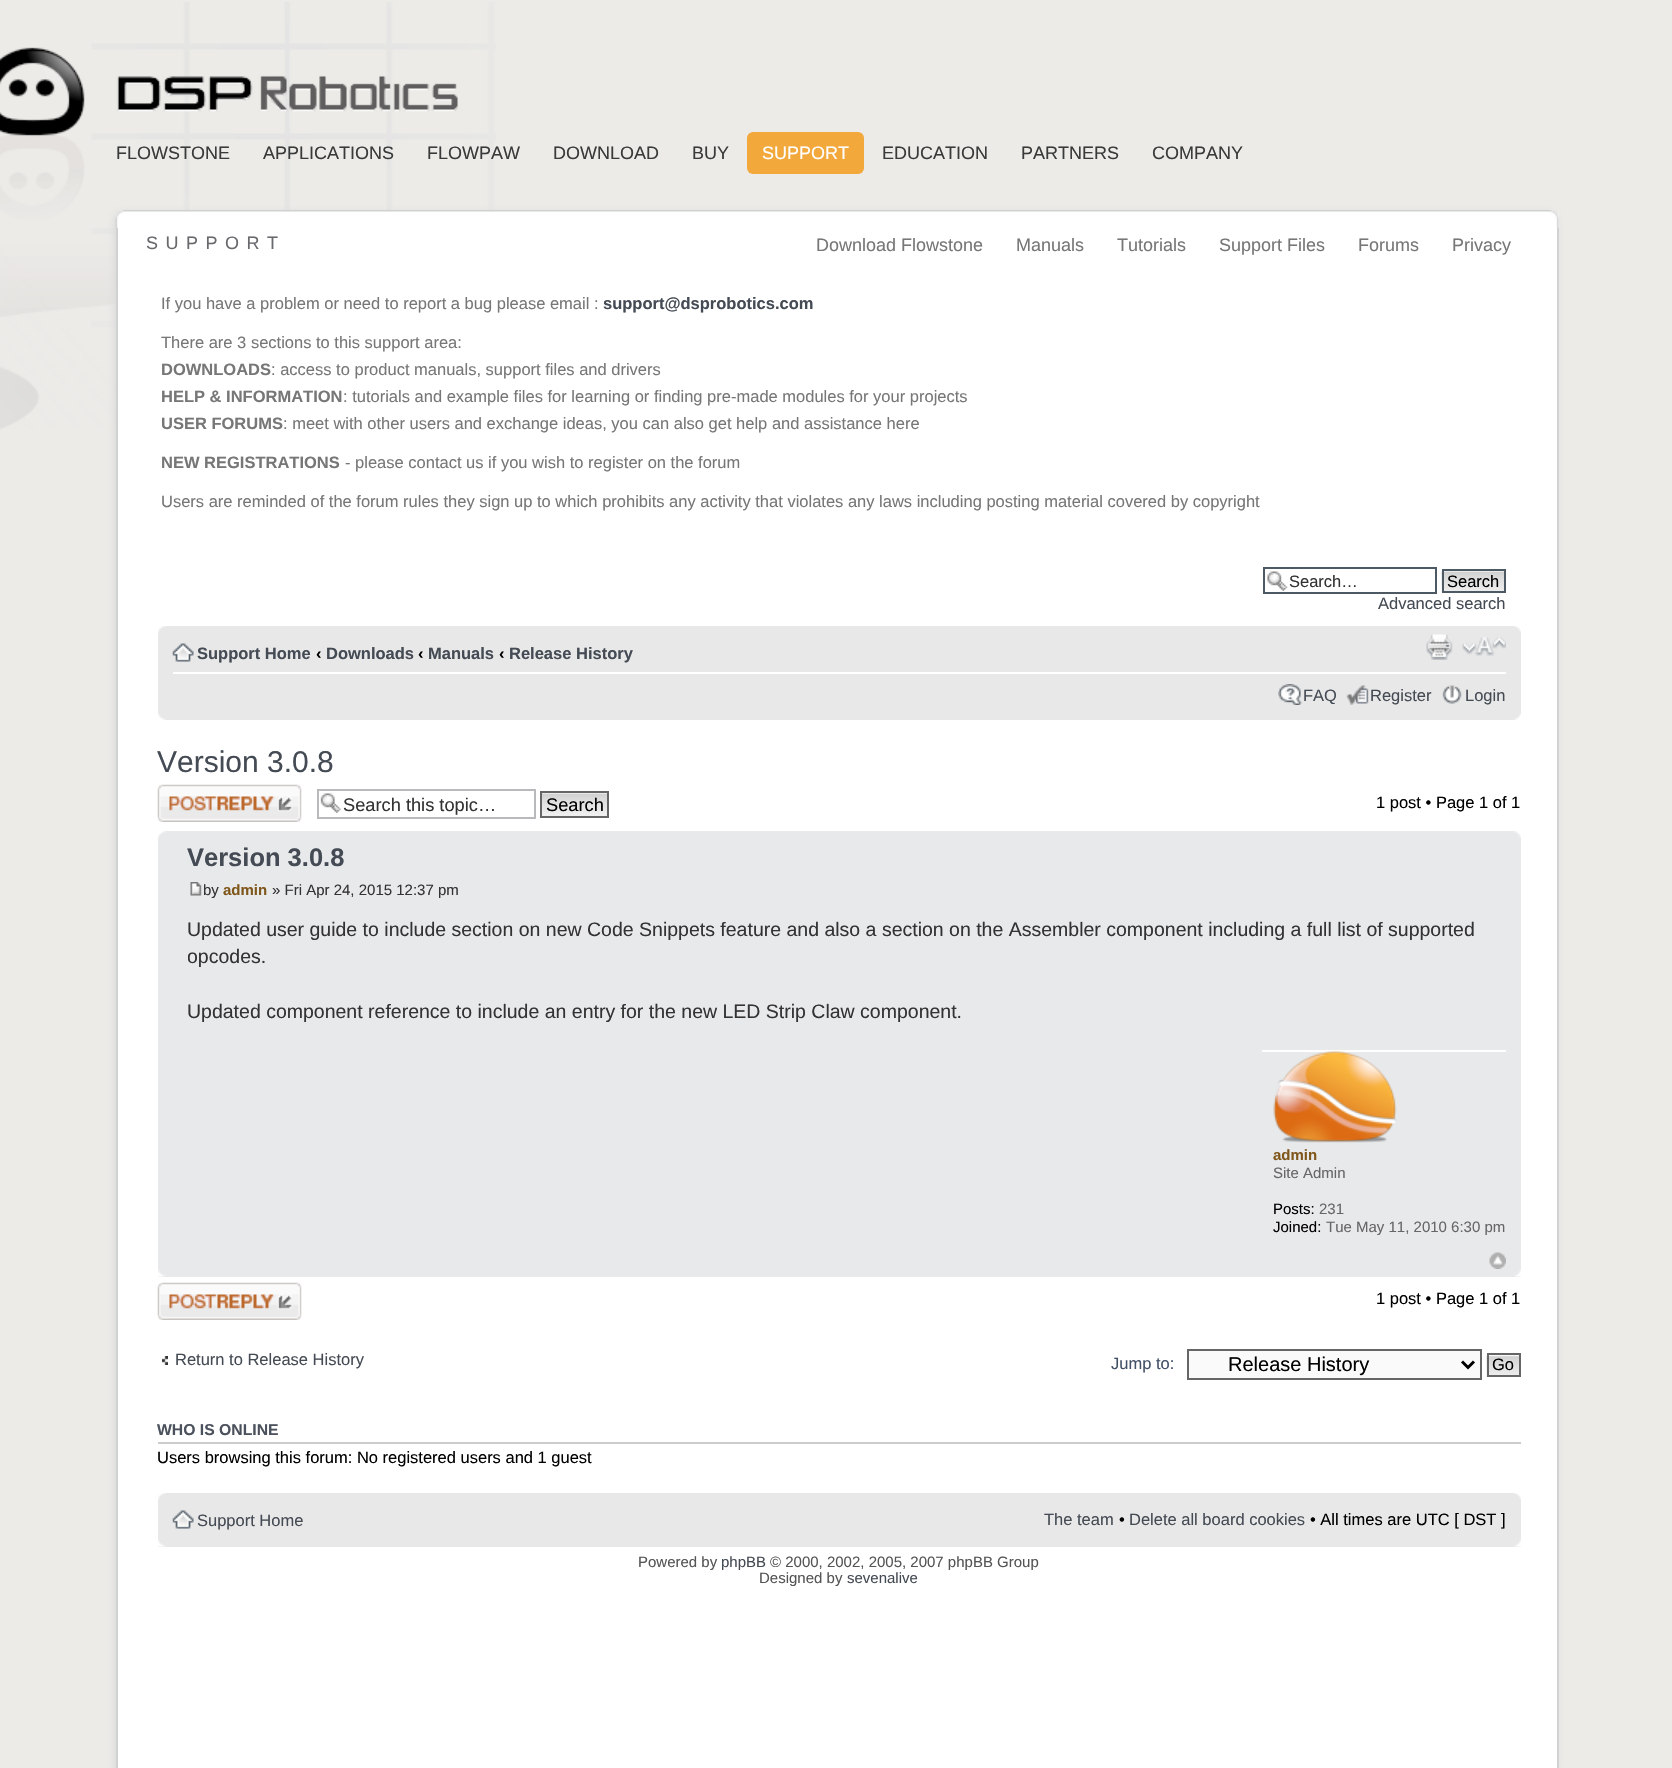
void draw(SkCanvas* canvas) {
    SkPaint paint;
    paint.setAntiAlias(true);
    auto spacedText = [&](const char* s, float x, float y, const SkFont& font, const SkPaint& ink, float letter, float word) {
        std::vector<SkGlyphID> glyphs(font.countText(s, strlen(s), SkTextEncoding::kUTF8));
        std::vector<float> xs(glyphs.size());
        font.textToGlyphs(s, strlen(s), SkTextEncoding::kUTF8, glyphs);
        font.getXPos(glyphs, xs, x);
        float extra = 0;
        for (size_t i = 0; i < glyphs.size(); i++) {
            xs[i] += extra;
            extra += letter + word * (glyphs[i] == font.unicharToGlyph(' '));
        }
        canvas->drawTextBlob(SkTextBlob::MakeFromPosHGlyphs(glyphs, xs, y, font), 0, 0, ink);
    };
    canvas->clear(0xFFECEBE8);
    canvas->drawImageRect(SkImages::DeferredFromEncodedData(SkData::MakeFromFileName("img1.png")), SkRect::MakeXYWH(0, 2, 496, 427), SkSamplingOptions());
    SkFont font1(fontMgr->matchFamilyStyle("Liberation Sans", SkFontStyle::Normal()), 18);
    font1.setSubpixel(true);
    paint.setColor(0xFF393A3A);
    canvas->drawString("FLOWSTONE", 116, 159, font1, paint);
    canvas->drawString("APPLICATIONS", 263, 159, font1, paint);
    canvas->drawString("FLOWPAW", 427, 159, font1, paint);
    canvas->drawString("DOWNLOAD", 553, 159, font1, paint);
    canvas->drawString("BUY", 692, 159, font1, paint);
    paint.setColor(0xFFF2A83A);
    canvas->drawRoundRect(SkRect::MakeXYWH(747, 132, 117, 42), 6, 6, paint);
    paint.setColor(0xFFFFFFFF);
    canvas->drawString("SUPPORT", 762, 159, font1, paint);
    paint.setColor(0xFF393A3A);
    canvas->drawString("EDUCATION", 882, 159, font1, paint);
    canvas->drawString("PARTNERS", 1021, 159, font1, paint);
    canvas->drawString("COMPANY", 1152, 159, font1, paint);
    paint.setColor(0xFFDBDBDB);
    paint.setMaskFilter(SkMaskFilter::MakeBlur(kNormal_SkBlurStyle, 3));
    canvas->drawRoundRect(SkRect::MakeXYWH(114, 212, 1443, 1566), 9, 9, paint);
    paint.setMaskFilter(nullptr);
    paint.setColor(0xFFFFFFFF);
    canvas->drawRect(SkRect::MakeXYWH(116, 228, 1443, 1540), paint);
    paint.setStyle(SkPaint::kStroke_Style);
    paint.setStrokeWidth(2);
    paint.setColor(0xFFD0D1D1);
    canvas->drawRect(SkRect::MakeXYWH(117, 211, 1441, 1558), paint);
    paint.setStyle(SkPaint::kFill_Style);
    paint.setColor(0xFFF7F7F7);
    canvas->drawRect(SkRect::MakeXYWH(1558, 210, 1, 18), paint);
    canvas->drawImageRect(SkImages::DeferredFromEncodedData(SkData::MakeFromFileName("img2.png")), SkRect::MakeXYWH(115, 210, 1444, 18), SkSamplingOptions());
    paint.setColor(0xFF68696D);
    spacedText("SUPPORT", 146, 249, font1, paint, 7.5f, 0);
    paint.setColor(0xFF777777);
    canvas->drawString("Download Flowstone", 816, 251, font1, paint);
    canvas->drawString("Manuals", 1016, 251, font1, paint);
    canvas->drawString("Tutorials", 1117, 251, font1, paint);
    canvas->drawString("Support Files", 1219, 251, font1, paint);
    canvas->drawString("Forums", 1358, 251, font1, paint);
    canvas->drawString("Privacy", 1452, 251, font1, paint);
    SkFont font2(fontMgr->matchFamilyStyle("Liberation Sans", SkFontStyle::Normal()), 16.5f);
    font2.setSubpixel(true);
    canvas->drawString("If you have a problem or need to report a bug please email :", 161, 309, font2, paint);
    SkFont font3(fontMgr->matchFamilyStyle("Liberation Sans", SkFontStyle::Bold()), 16.5f);
    font3.setSubpixel(true);
    paint.setColor(0xFF454B54);
    canvas->drawString("support@dsprobotics.com", 603, 309, font3, paint);
    paint.setColor(0xFF777777);
    canvas->drawString("There are 3 sections to this support area:", 161, 348, font2, paint);
    canvas->drawString("DOWNLOADS", 161, 375, font3, paint);
    canvas->drawString(": access to product manuals, support files and drivers", 271, 375, font2, paint);
    canvas->drawString("HELP & INFORMATION", 161, 402, font3, paint);
    canvas->drawString(": tutorials and example files for learning or finding pre-made modules for your projects", 343, 402, font2, paint);
    canvas->drawString("USER FORUMS", 161, 429, font3, paint);
    canvas->drawString(": meet with other users and exchange ideas, you can also get help and assistance here", 283, 429, font2, paint);
    canvas->drawString("NEW REGISTRATIONS", 161, 468, font3, paint);
    canvas->drawString("- please contact us if you wish to register on the forum", 345, 468, font2, paint);
    canvas->drawString("Users are reminded of the forum rules they sign up to which prohibits any activity that violates any laws including posting material covered by copyright", 161, 507, font2, paint);
    canvas->drawImageRect(SkImages::DeferredFromEncodedData(SkData::MakeFromFileName("img3.png")), SkRect::MakeXYWH(1267, 571, 21, 20), SkSamplingOptions());
    paint.setStyle(SkPaint::kStroke_Style);
    paint.setColor(0xFF4D5963);
    canvas->drawRect(SkRect::MakeXYWH(1264, 568, 172, 25), paint);
    paint.setStyle(SkPaint::kFill_Style);
    paint.setColor(0xFF333333);
    canvas->drawString("Search…", 1289, 587, font2, paint);
    canvas->drawImageRect(SkImages::DeferredFromEncodedData(SkData::MakeFromFileName("img4.png")), SkRect::MakeXYWH(1441, 570, 63, 23), SkSamplingOptions());
    paint.setStyle(SkPaint::kStroke_Style);
    paint.setColor(0xFF4D5963);
    canvas->drawRect(SkRect::MakeXYWH(1443, 570, 62, 22), paint);
    paint.setStyle(SkPaint::kFill_Style);
    paint.setColor(0xFF000000);
    canvas->drawString("Search", 1447, 587, font2, paint);
    paint.setColor(0xFF454B54);
    canvas->drawString("Advanced search", 1378, 609, font2, paint);
    paint.setColor(0xFFE8E8E8);
    canvas->drawRect(SkRect::MakeXYWH(158, 626, 1363, 94), paint);
    canvas->drawImageRect(SkImages::DeferredFromEncodedData(SkData::MakeFromFileName("img5.png")), SkRect::MakeXYWH(158, 626, 8, 7), SkSamplingOptions());
    canvas->drawImageRect(SkImages::DeferredFromEncodedData(SkData::MakeFromFileName("img6.png")), SkRect::MakeXYWH(1514, 626, 7, 7), SkSamplingOptions());
    paint.setColor(0xFFFFFFFF);
    canvas->drawRect(SkRect::MakeXYWH(173, 672, 1333, 2), paint);
    canvas->drawImageRect(SkImages::DeferredFromEncodedData(SkData::MakeFromFileName("img7.png")), SkRect::MakeXYWH(172, 643, 22, 19), SkSamplingOptions());
    paint.setColor(0xFF454B54);
    canvas->drawString("Support Home", 197, 659, font3, paint);
    paint.setColor(0xFF000000);
    canvas->drawString("‹", 316, 659, font3, paint);
    paint.setColor(0xFF454B54);
    canvas->drawString("Downloads", 326, 659, font3, paint);
    paint.setColor(0xFF000000);
    canvas->drawString("‹", 418, 659, font3, paint);
    paint.setColor(0xFF454B54);
    canvas->drawString("Manuals", 428, 659, font3, paint);
    paint.setColor(0xFF000000);
    canvas->drawString("‹", 499, 659, font3, paint);
    paint.setColor(0xFF454B54);
    canvas->drawString("Release History", 509, 659, font3, paint);
    canvas->drawImageRect(SkImages::DeferredFromEncodedData(SkData::MakeFromFileName("img8.png")), SkRect::MakeXYWH(1426, 634, 27, 26), SkSamplingOptions());
    canvas->drawImageRect(SkImages::DeferredFromEncodedData(SkData::MakeFromFileName("img9.png")), SkRect::MakeXYWH(1462, 637, 44, 19), SkSamplingOptions());
    canvas->drawImageRect(SkImages::DeferredFromEncodedData(SkData::MakeFromFileName("img10.png")), SkRect::MakeXYWH(1278, 684, 24, 21), SkSamplingOptions());
    canvas->drawString("FAQ", 1303, 701, font2, paint);
    canvas->drawImageRect(SkImages::DeferredFromEncodedData(SkData::MakeFromFileName("img11.png")), SkRect::MakeXYWH(1346, 685, 23, 20), SkSamplingOptions());
    canvas->drawString("Register", 1370, 701, font2, paint);
    canvas->drawImageRect(SkImages::DeferredFromEncodedData(SkData::MakeFromFileName("img12.png")), SkRect::MakeXYWH(1442, 685, 20, 19), SkSamplingOptions());
    canvas->drawString("Login", 1465, 701, font2, paint);
    canvas->drawImageRect(SkImages::DeferredFromEncodedData(SkData::MakeFromFileName("img13.png")), SkRect::MakeXYWH(158, 713, 8, 7), SkSamplingOptions());
    canvas->drawImageRect(SkImages::DeferredFromEncodedData(SkData::MakeFromFileName("img14.png")), SkRect::MakeXYWH(1514, 713, 7, 7), SkSamplingOptions());
    SkFont font4(fontMgr->matchFamilyStyle("Liberation Sans", SkFontStyle::Normal()), 30);
    font4.setSubpixel(true);
    canvas->drawString("Version 3.0.8", 157, 772, font4, paint);
    canvas->drawImageRect(SkImages::DeferredFromEncodedData(SkData::MakeFromFileName("img15.png")), SkRect::MakeXYWH(157, 784, 145, 38), SkSamplingOptions());
    canvas->drawImageRect(SkImages::DeferredFromEncodedData(SkData::MakeFromFileName("img16.png")), SkRect::MakeXYWH(320, 793, 21, 20), SkSamplingOptions());
    paint.setStyle(SkPaint::kStroke_Style);
    paint.setColor(0xFFB9BABB);
    canvas->drawRect(SkRect::MakeXYWH(318, 790, 217, 28), paint);
    SkFont font5(fontMgr->matchFamilyStyle("Liberation Sans", SkFontStyle::Normal()), 18.25f);
    font5.setSubpixel(true);
    paint.setStyle(SkPaint::kFill_Style);
    paint.setColor(0xFF333333);
    canvas->drawString("Search this topic…", 343, 811, font5, paint);
    canvas->drawImageRect(SkImages::DeferredFromEncodedData(SkData::MakeFromFileName("img17.png")), SkRect::MakeXYWH(542, 793, 65, 23), SkSamplingOptions());
    paint.setStyle(SkPaint::kStroke_Style);
    paint.setColor(0xFF666666);
    canvas->drawRect(SkRect::MakeXYWH(541, 792, 67, 25), paint);
    paint.setStyle(SkPaint::kFill_Style);
    paint.setColor(0xFF000000);
    canvas->drawString("Search", 546, 811, font5, paint);
    canvas->drawString("1 post • Page 1 of 1", 1376, 808, font2, paint);
    paint.setColor(0xFFE8E9EB);
    canvas->drawRect(SkRect::MakeXYWH(158, 831, 1363, 446), paint);
    canvas->drawImageRect(SkImages::DeferredFromEncodedData(SkData::MakeFromFileName("img18.png")), SkRect::MakeXYWH(158, 831, 8, 7), SkSamplingOptions());
    canvas->drawImageRect(SkImages::DeferredFromEncodedData(SkData::MakeFromFileName("img19.png")), SkRect::MakeXYWH(1514, 831, 7, 7), SkSamplingOptions());
    SkFont font6(fontMgr->matchFamilyStyle("Liberation Sans", SkFontStyle::Bold()), 25.5f);
    font6.setSubpixel(true);
    paint.setColor(0xFF454B54);
    canvas->drawString("Version 3.0.8", 187, 866, font6, paint);
    canvas->drawImageRect(SkImages::DeferredFromEncodedData(SkData::MakeFromFileName("img20.png")), SkRect::MakeXYWH(190, 882, 12, 14), SkSamplingOptions());
    SkFont font7(fontMgr->matchFamilyStyle("Liberation Sans", SkFontStyle::Normal()), 15);
    font7.setSubpixel(true);
    paint.setColor(0xFF333333);
    canvas->drawString("by", 203, 895, font7, paint);
    SkFont font8(fontMgr->matchFamilyStyle("Liberation Sans", SkFontStyle::Bold()), 15);
    font8.setSubpixel(true);
    paint.setColor(0xFF7F571B);
    canvas->drawString("admin", 223, 895, font8, paint);
    paint.setColor(0xFF333333);
    canvas->drawString("» Fri Apr 24, 2015 12:37 pm", 272, 895, font7, paint);
    SkFont font9(fontMgr->matchFamilyStyle("Liberation Sans", SkFontStyle::Normal()), 19.5f);
    font9.setSubpixel(true);
    canvas->drawString("Updated user guide to include section on new Code Snippets feature and also a section on the Assembler component including a full list of supported", 187, 936, font9, paint);
    canvas->save();
    canvas->clipRect(SkRect::MakeXYWH(188, 917, 1333, 111));
    canvas->drawString("opcodes.", 187, 963, font9, paint);
    canvas->restore();
    canvas->drawString("Updated component reference to include an entry for the new LED Strip Claw component.", 187, 1018, font9, paint);
    paint.setColor(0xFFFFFFFF);
    canvas->drawRect(SkRect::MakeXYWH(1262, 1050, 244, 2), paint);
    canvas->drawImageRect(SkImages::DeferredFromEncodedData(SkData::MakeFromFileName("img21.png")), SkRect::MakeXYWH(1273, 1051, 124, 92), SkSamplingOptions());
    paint.setColor(0xFF7F571B);
    canvas->drawString("admin", 1273, 1160, font8, paint);
    paint.setColor(0xFF666666);
    canvas->drawString("Site Admin", 1273, 1178, font7, paint);
    paint.setColor(0xFF000000);
    canvas->drawString("Posts:", 1273, 1214, font7, paint);
    paint.setColor(0xFF666666);
    canvas->drawString("231", 1319, 1214, font7, paint);
    paint.setColor(0xFF000000);
    canvas->drawString("Joined:", 1273, 1232, font7, paint);
    paint.setColor(0xFF666666);
    canvas->drawString("Tue May 11, 2010 6:30 pm", 1326, 1232, font7, paint);
    canvas->drawImageRect(SkImages::DeferredFromEncodedData(SkData::MakeFromFileName("img22.png")), SkRect::MakeXYWH(1489, 1252, 17, 17), SkSamplingOptions());
    canvas->drawImageRect(SkImages::DeferredFromEncodedData(SkData::MakeFromFileName("img23.png")), SkRect::MakeXYWH(158, 1269, 8, 8), SkSamplingOptions());
    canvas->drawImageRect(SkImages::DeferredFromEncodedData(SkData::MakeFromFileName("img24.png")), SkRect::MakeXYWH(1514, 1269, 7, 8), SkSamplingOptions());
    canvas->drawImageRect(SkImages::DeferredFromEncodedData(SkData::MakeFromFileName("img15.png")), SkRect::MakeXYWH(157, 1282, 145, 38), SkSamplingOptions());
    paint.setColor(0xFF000000);
    canvas->drawString("1 post • Page 1 of 1", 1376, 1304, font2, paint);
    canvas->drawImageRect(SkImages::DeferredFromEncodedData(SkData::MakeFromFileName("img25.png")), SkRect::MakeXYWH(162, 1356, 6, 9), SkSamplingOptions());
    paint.setColor(0xFF454B54);
    canvas->drawString("Return to Release History", 175, 1365, font2, paint);
    paint.setColor(0xFF425067);
    canvas->drawString("Jump to:", 1111, 1369, font2, paint);
    paint.setColor(0xFFFAFAFA);
    canvas->drawRect(SkRect::MakeXYWH(1188, 1350, 293, 29), paint);
    paint.setStyle(SkPaint::kStroke_Style);
    paint.setColor(0xFF666666);
    canvas->drawRect(SkRect::MakeXYWH(1188, 1350, 293, 29), paint);
    paint.setStrokeWidth(3);
    paint.setColor(0xFF000000);
    canvas->drawPath(SkPathBuilder().moveTo(1462, 1361.5f).lineTo(1468, 1367.5f).lineTo(1474, 1361.5f).detach(), paint);
    SkFont font10(fontMgr->matchFamilyStyle("Liberation Sans", SkFontStyle::Normal()), 20);
    font10.setSubpixel(true);
    paint.setStyle(SkPaint::kFill_Style);
    canvas->drawString("Release History", 1228, 1371, font10, paint);
    canvas->drawImageRect(SkImages::DeferredFromEncodedData(SkData::MakeFromFileName("img26.png")), SkRect::MakeXYWH(1486, 1355, 33, 22), SkSamplingOptions());
    paint.setStyle(SkPaint::kStroke_Style);
    paint.setStrokeWidth(2);
    paint.setColor(0xFF666666);
    canvas->drawRect(SkRect::MakeXYWH(1488, 1354, 32, 22), paint);
    paint.setStyle(SkPaint::kFill_Style);
    paint.setColor(0xFF000000);
    canvas->drawString("Go", 1492, 1370, font2, paint);
    paint.setColor(0xFFCCCCCC);
    canvas->drawRect(SkRect::MakeXYWH(158, 1442, 1363, 2), paint);
    SkFont font11(fontMgr->matchFamilyStyle("Liberation Sans", SkFontStyle::Bold()), 15.75f);
    font11.setSubpixel(true);
    paint.setColor(0xFF4C525D);
    canvas->drawString("WHO IS ONLINE", 157, 1435, font11, paint);
    paint.setColor(0xFF000000);
    canvas->drawString("Users browsing this forum: No registered users and 1 guest", 157, 1463, font2, paint);
    paint.setColor(0xFFE8E8E8);
    canvas->drawRect(SkRect::MakeXYWH(158, 1493, 1363, 54), paint);
    canvas->drawImageRect(SkImages::DeferredFromEncodedData(SkData::MakeFromFileName("img5.png")), SkRect::MakeXYWH(158, 1493, 8, 7), SkSamplingOptions());
    canvas->drawImageRect(SkImages::DeferredFromEncodedData(SkData::MakeFromFileName("img6.png")), SkRect::MakeXYWH(1514, 1493, 7, 7), SkSamplingOptions());
    canvas->drawImageRect(SkImages::DeferredFromEncodedData(SkData::MakeFromFileName("img7.png")), SkRect::MakeXYWH(172, 1510, 22, 19), SkSamplingOptions());
    paint.setColor(0xFF454B54);
    canvas->drawString("Support Home", 197, 1526, font2, paint);
    canvas->drawString("The team", 1044, 1525, font2, paint);
    paint.setColor(0xFF000000);
    canvas->drawString("•", 1119, 1525, font2, paint);
    paint.setColor(0xFF454B54);
    canvas->drawString("Delete all board cookies", 1129, 1525, font2, paint);
    paint.setColor(0xFF000000);
    canvas->drawString("• All times are UTC [ DST ]", 1310, 1525, font2, paint);
    canvas->drawImageRect(SkImages::DeferredFromEncodedData(SkData::MakeFromFileName("img27.png")), SkRect::MakeXYWH(158, 1539, 8, 8), SkSamplingOptions());
    canvas->drawImageRect(SkImages::DeferredFromEncodedData(SkData::MakeFromFileName("img28.png")), SkRect::MakeXYWH(1514, 1539, 7, 8), SkSamplingOptions());
    paint.setColor(0xFF555555);
    canvas->drawString("Powered by", 638, 1567, font7, paint);
    paint.setColor(0xFF454B54);
    canvas->drawString("phpBB", 721, 1567, font7, paint);
    paint.setColor(0xFF555555);
    canvas->drawString("© 2000, 2002, 2005, 2007 phpBB Group", 770, 1567, font7, paint);
    canvas->drawString("Designed by", 759, 1583, font7, paint);
    paint.setColor(0xFF454B54);
    canvas->drawString("sevenalive", 847, 1583, font7, paint);
}
